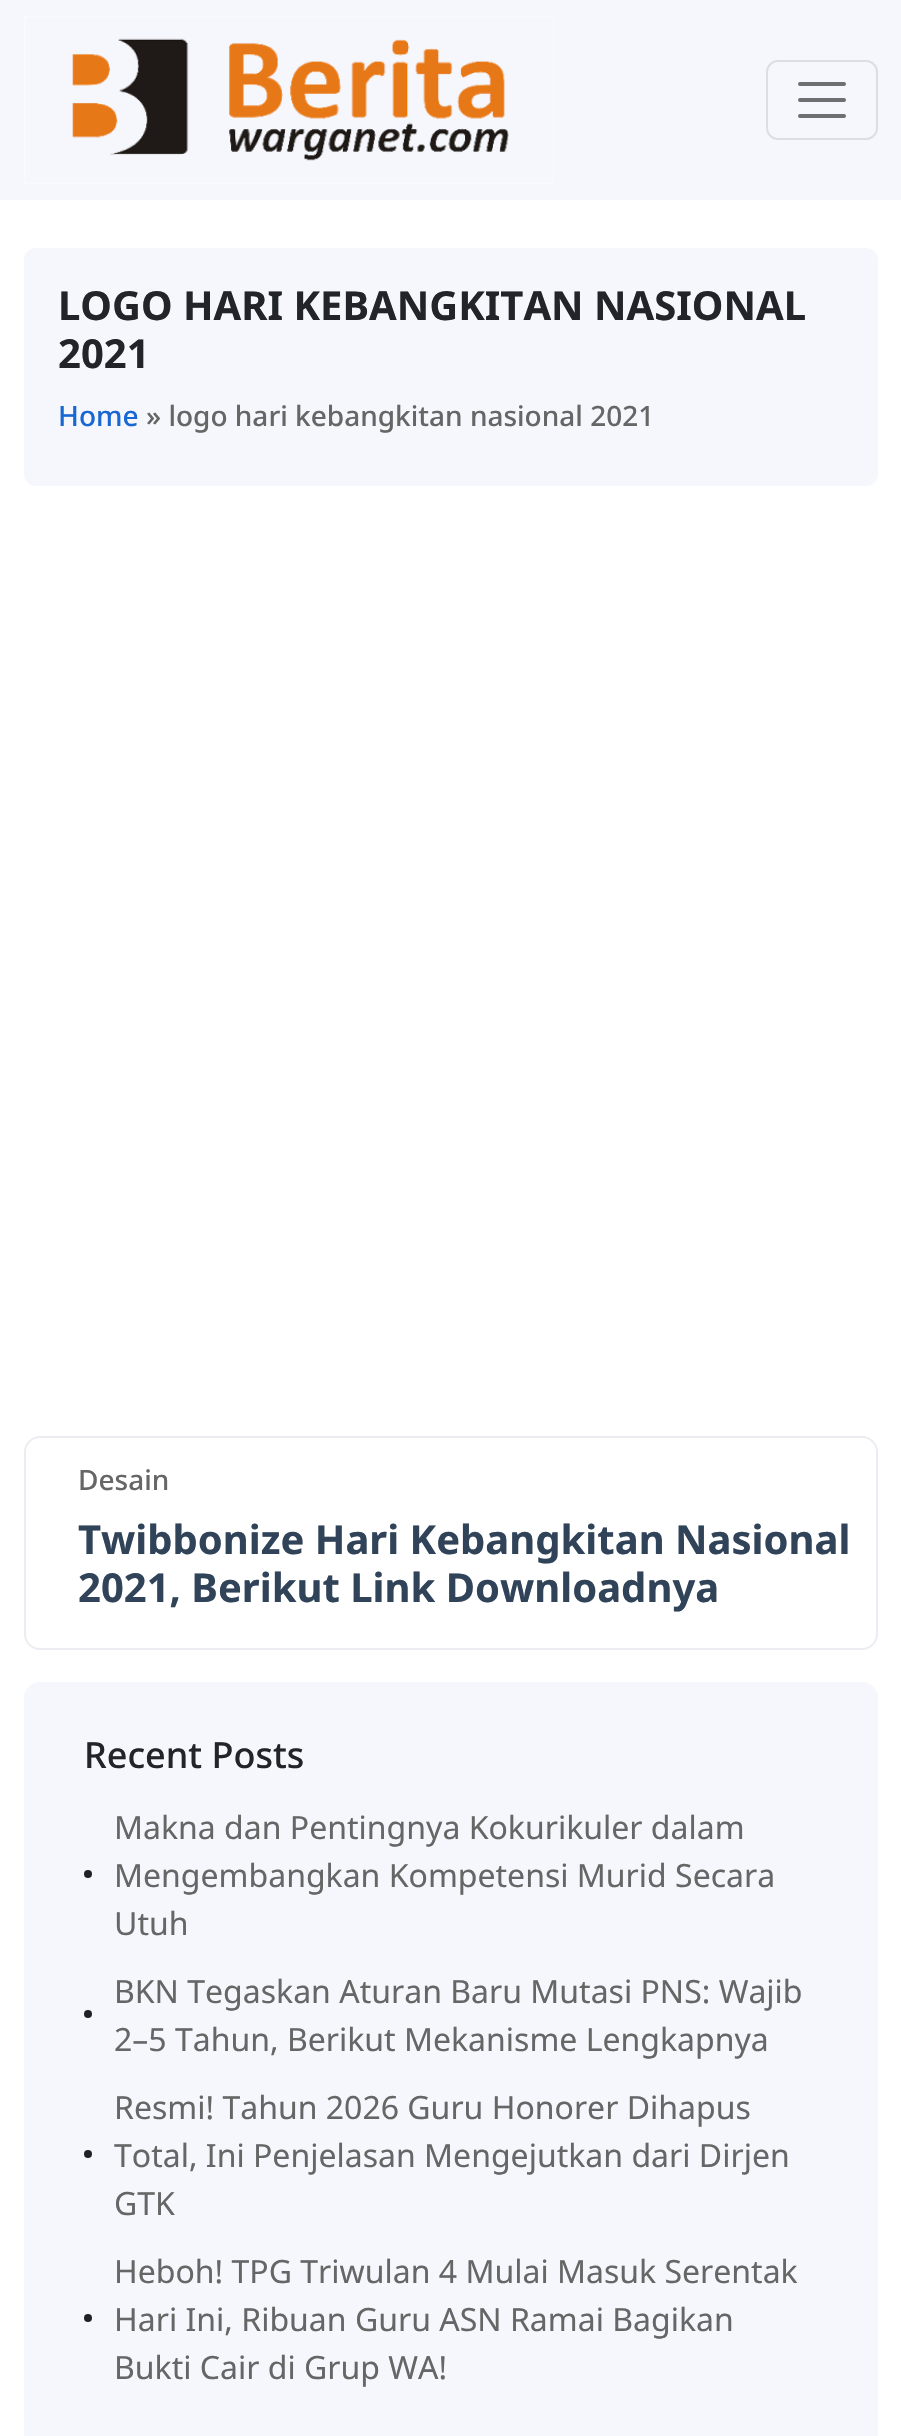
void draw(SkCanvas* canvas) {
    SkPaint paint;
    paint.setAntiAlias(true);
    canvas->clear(0xFFFFFFFF);
    paint.setColor(0xFFF5F7FC);
    canvas->drawRect(SkRect::MakeXYWH(0, 0, 901, 200), paint);
    canvas->drawImageRect(SkImages::DeferredFromEncodedData(SkData::MakeFromFileName("img1.png")), SkRect::MakeXYWH(24, 16, 530, 168), SkSamplingOptions());
    paint.setStyle(SkPaint::kStroke_Style);
    paint.setStrokeWidth(2);
    paint.setColor(0xFFDDDEE3);
    canvas->drawRoundRect(SkRect::MakeXYWH(767, 61, 110, 78), 11, 11, paint);
    paint.setStrokeWidth(4);
    paint.setStrokeCap(SkPaint::kRound_Cap);
    paint.setColor(0xFF6E6F71);
    canvas->drawPath(SkPathBuilder().moveTo(800, 84).lineTo(844, 84).moveTo(800, 100).lineTo(844, 100).moveTo(800, 116).lineTo(844, 116).detach(), paint);
    paint.setStyle(SkPaint::kFill_Style);
    paint.setColor(0xFFF5F7FC);
    canvas->drawRoundRect(SkRect::MakeXYWH(24, 248, 854, 238), 12, 12, paint);
    SkFont font1(fontMgr->matchFamilyStyle("Noto Sans", SkFontStyle::Bold()), 40);
    font1.setSubpixel(true);
    paint.setColor(0xFF212529);
    canvas->drawString("LOGO HARI KEBANGKITAN NASIONAL", 58, 320, font1, paint);
    canvas->drawString("2021", 58, 368, font1, paint);
    SkFont font2(fontMgr->matchFamilyStyle("Noto Sans", SkFontStyle(500, SkFontStyle::kNormal_Width, SkFontStyle::kUpright_Slant)), 28);
    font2.setSubpixel(true);
    paint.setColor(0xFF1967D2);
    canvas->drawString("Home", 58, 426, font2, paint);
    paint.setColor(0xFF666666);
    canvas->drawString("» logo hari kebangkitan nasional 2021", 146, 426, font2, paint);
    paint.setStyle(SkPaint::kStroke_Style);
    paint.setStrokeWidth(2);
    paint.setStrokeCap(SkPaint::kButt_Cap);
    paint.setColor(0xFFECEDF2);
    canvas->drawRoundRect(SkRect::MakeXYWH(25, 1437, 852, 212), 15, 15, paint);
    paint.setStyle(SkPaint::kFill_Style);
    paint.setColor(0xFF666666);
    canvas->drawString("Desain", 78, 1490, font2, paint);
    paint.setColor(0xFF304358);
    canvas->drawString("Twibbonize Hari Kebangkitan Nasional", 78, 1554, font1, paint);
    canvas->drawString("2021, Berikut Link Downloadnya", 78, 1602, font1, paint);
    paint.setColor(0xFFF5F7FC);
    canvas->drawRoundRect(SkRect::MakeXYWH(24, 1682, 854, 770), 16, 16, paint);
    SkFont font3(fontMgr->matchFamilyStyle("Noto Sans", SkFontStyle(500, SkFontStyle::kNormal_Width, SkFontStyle::kUpright_Slant)), 36);
    font3.setSubpixel(true);
    paint.setColor(0xFF212529);
    canvas->drawString("Recent Posts", 84, 1768, font3, paint);
    SkFont font4(fontMgr->matchFamilyStyle("Noto Sans", SkFontStyle::Normal()), 32);
    font4.setSubpixel(true);
    paint.setColor(0xFF666666);
    canvas->drawString("Makna dan Pentingnya Kokurikuler dalam", 114, 1839, font4, paint);
    paint.setColor(0xFF202124);
    canvas->drawCircle(88, 1874, 4, paint);
    paint.setColor(0xFF666666);
    canvas->drawString("Mengembangkan Kompetensi Murid Secara", 114, 1887, font4, paint);
    canvas->drawString("Utuh", 114, 1935, font4, paint);
    canvas->drawString("BKN Tegaskan Aturan Baru Mutasi PNS: Wajib", 114, 2003, font4, paint);
    paint.setColor(0xFF202124);
    canvas->drawCircle(88, 2014, 4, paint);
    paint.setColor(0xFF666666);
    canvas->drawString("2–5 Tahun, Berikut Mekanisme Lengkapnya", 114, 2051, font4, paint);
    canvas->drawString("Resmi! Tahun 2026 Guru Honorer Dihapus", 114, 2119, font4, paint);
    paint.setColor(0xFF202124);
    canvas->drawCircle(88, 2154, 4, paint);
    paint.setColor(0xFF666666);
    canvas->drawString("Total, Ini Penjelasan Mengejutkan dari Dirjen", 114, 2167, font4, paint);
    canvas->drawString("GTK", 114, 2215, font4, paint);
    canvas->drawString("Heboh! TPG Triwulan 4 Mulai Masuk Serentak", 114, 2283, font4, paint);
    paint.setColor(0xFF202124);
    canvas->drawCircle(88, 2318, 4, paint);
    paint.setColor(0xFF666666);
    canvas->drawString("Hari Ini, Ribuan Guru ASN Ramai Bagikan", 114, 2331, font4, paint);
    canvas->drawString("Bukti Cair di Grup WA!", 114, 2379, font4, paint);
}
